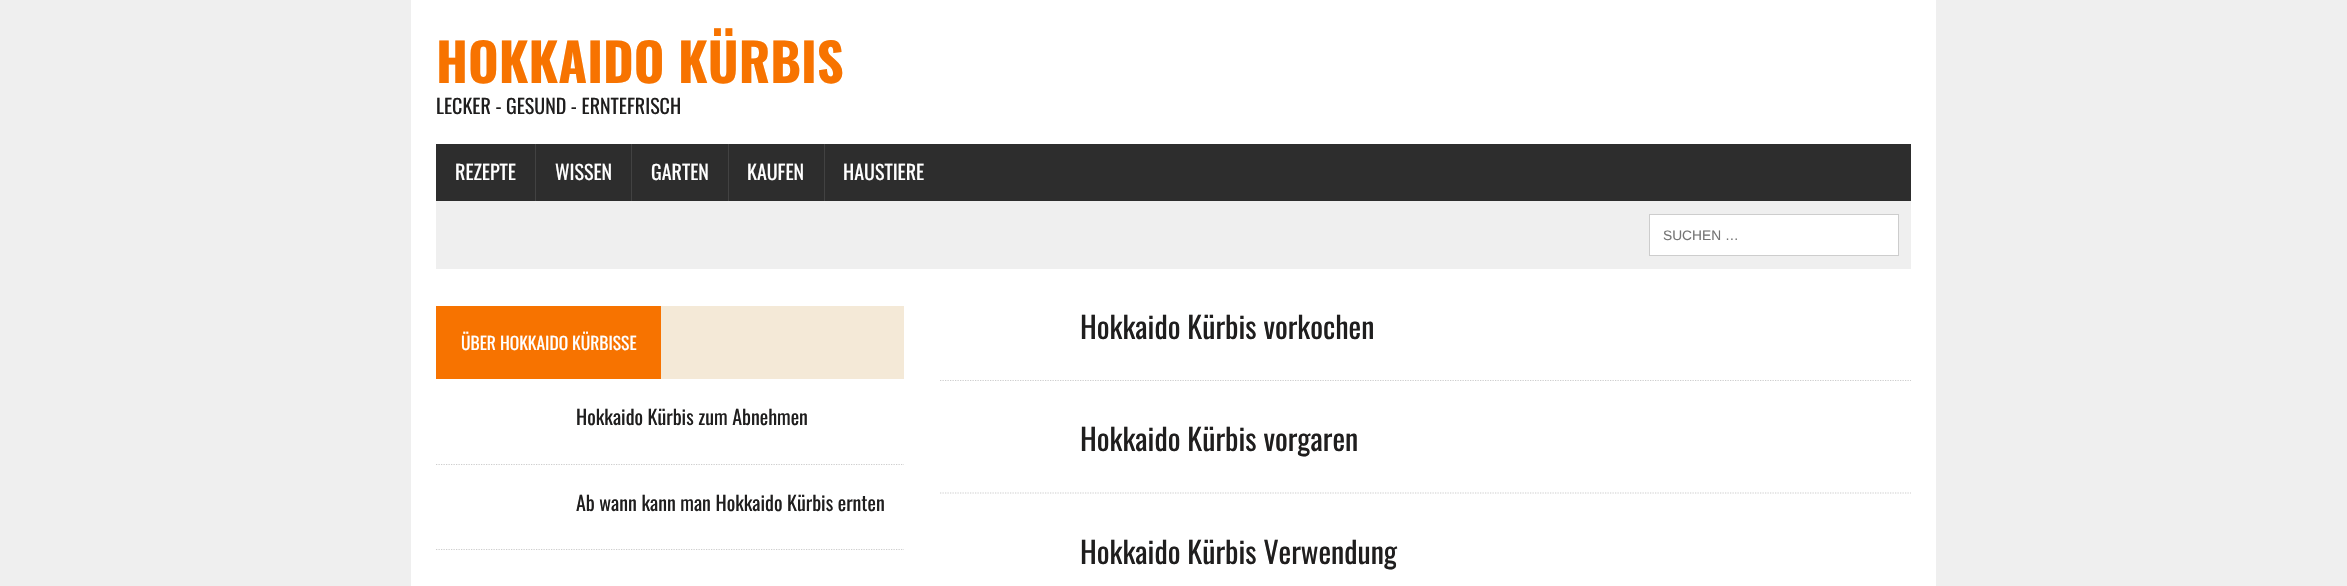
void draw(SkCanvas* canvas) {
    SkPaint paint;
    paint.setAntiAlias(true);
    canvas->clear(0xFFEFEFEF);
    paint.setColor(0xFFFFFFFF);
    canvas->drawRect(SkRect::MakeXYWH(411, 0, 1525, 586), paint);
    SkFont font1(fontMgr->matchFamilyStyle("Oswald", SkFontStyle::Bold()), 52.5f);
    font1.setSubpixel(true);
    paint.setColor(0xFFF77300);
    canvas->drawString("HOKKAIDO KÜRBIS", 436, 83, font1, paint);
    SkFont font2(fontMgr->matchFamilyStyle("Oswald", SkFontStyle::Normal()), 20);
    font2.setSubpixel(true);
    paint.setColor(0xFF1F1E1E);
    canvas->drawString("LECKER - GESUND - ERNTEFRISCH", 436, 114, font2, paint);
    paint.setColor(0xFF2D2D2D);
    canvas->drawRect(SkRect::MakeXYWH(436, 144, 1475, 57), paint);
    paint.setColor(0xFFFFFFFF);
    canvas->drawString("REZEPTE", 455, 180, font2, paint);
    paint.setColor(0xFF424242);
    canvas->drawRect(SkRect::MakeXYWH(535, 144, 1, 57), paint);
    paint.setColor(0xFFFFFFFF);
    canvas->drawString("WISSEN", 555, 180, font2, paint);
    paint.setColor(0xFF424242);
    canvas->drawRect(SkRect::MakeXYWH(631, 144, 1, 57), paint);
    paint.setColor(0xFFFFFFFF);
    canvas->drawString("GARTEN", 651, 180, font2, paint);
    paint.setColor(0xFF424242);
    canvas->drawRect(SkRect::MakeXYWH(728, 144, 1, 57), paint);
    paint.setColor(0xFFFFFFFF);
    canvas->drawString("KAUFEN", 747, 180, font2, paint);
    paint.setColor(0xFF424242);
    canvas->drawRect(SkRect::MakeXYWH(824, 144, 1, 57), paint);
    paint.setColor(0xFFFFFFFF);
    canvas->drawString("HAUSTIERE", 843, 180, font2, paint);
    paint.setColor(0xFFEFEFEF);
    canvas->drawRect(SkRect::MakeXYWH(436, 201, 1475, 68), paint);
    paint.setColor(0xFFFFFFFF);
    canvas->drawRect(SkRect::MakeXYWH(1649.5f, 214.5f, 249, 41), paint);
    paint.setStyle(SkPaint::kStroke_Style);
    paint.setStrokeWidth(1);
    paint.setColor(0xFFCDCDCD);
    canvas->drawRect(SkRect::MakeXYWH(1649.5f, 214.5f, 249, 41), paint);
    SkFont font3(fontMgr->matchFamilyStyle("Liberation Sans", SkFontStyle::Normal()), 13.75f);
    font3.setSubpixel(true);
    paint.setStyle(SkPaint::kFill_Style);
    paint.setColor(0xFF757575);
    canvas->drawString("SUCHEN …", 1663, 240, font3, paint);
    paint.setColor(0xFFF4E9D7);
    canvas->drawRect(SkRect::MakeXYWH(661, 306, 243, 73), paint);
    paint.setColor(0xFFF77300);
    canvas->drawRect(SkRect::MakeXYWH(436, 306, 225, 73), paint);
    SkFont font4(fontMgr->matchFamilyStyle("Oswald", SkFontStyle::Normal()), 17.5f);
    font4.setSubpixel(true);
    paint.setColor(0xFFFFFFFF);
    canvas->drawString("ÜBER HOKKAIDO KÜRBISSE", 461, 350, font4, paint);
    paint.setColor(0xFF1F1E1E);
    canvas->drawString("Hokkaido Kürbis zum Abnehmen", 576, 425, font2, paint);
    paint.setStyle(SkPaint::kStroke_Style);
    paint.setStrokeWidth(1.2f);
    paint.setColor(0xFFCDCDCD);
    paint.setPathEffect(SkDashPathEffect::Make({{1.25f, 1.25f}}, 0));
    canvas->drawPath(SkPathBuilder().moveTo(436, 464.5f).lineTo(904, 464.5f).detach(), paint);
    paint.setPathEffect(nullptr);
    paint.setStyle(SkPaint::kFill_Style);
    paint.setColor(0xFF1F1E1E);
    canvas->drawString("Ab wann kann man Hokkaido Kürbis ernten", 576, 511, font2, paint);
    paint.setStyle(SkPaint::kStroke_Style);
    paint.setColor(0xFFCDCDCD);
    paint.setPathEffect(SkDashPathEffect::Make({{1.25f, 1.25f}}, 0));
    canvas->drawPath(SkPathBuilder().moveTo(436, 549.5f).lineTo(904, 549.5f).detach(), paint);
    paint.setPathEffect(nullptr);
    SkFont font5(fontMgr->matchFamilyStyle("Oswald", SkFontStyle::Normal()), 30);
    font5.setSubpixel(true);
    paint.setStyle(SkPaint::kFill_Style);
    paint.setColor(0xFF1F1E1E);
    canvas->drawString("Hokkaido Kürbis vorkochen", 1080, 339, font5, paint);
    paint.setStyle(SkPaint::kStroke_Style);
    paint.setColor(0xFFCDCDCD);
    paint.setPathEffect(SkDashPathEffect::Make({{1.25f, 1.25f}}, 0));
    canvas->drawPath(SkPathBuilder().moveTo(940, 380.5f).lineTo(1911, 380.5f).detach(), paint);
    paint.setPathEffect(nullptr);
    paint.setStyle(SkPaint::kFill_Style);
    paint.setColor(0xFF1F1E1E);
    canvas->drawString("Hokkaido Kürbis vorgaren", 1080, 451, font5, paint);
    paint.setStyle(SkPaint::kStroke_Style);
    paint.setColor(0xFFCDCDCD);
    paint.setPathEffect(SkDashPathEffect::Make({{1.25f, 1.25f}}, 0));
    canvas->drawPath(SkPathBuilder().moveTo(940, 493).lineTo(1911, 493).detach(), paint);
    paint.setPathEffect(nullptr);
    paint.setStyle(SkPaint::kFill_Style);
    paint.setColor(0xFF1F1E1E);
    canvas->drawString("Hokkaido Kürbis Verwendung", 1080, 564, font5, paint);
}
